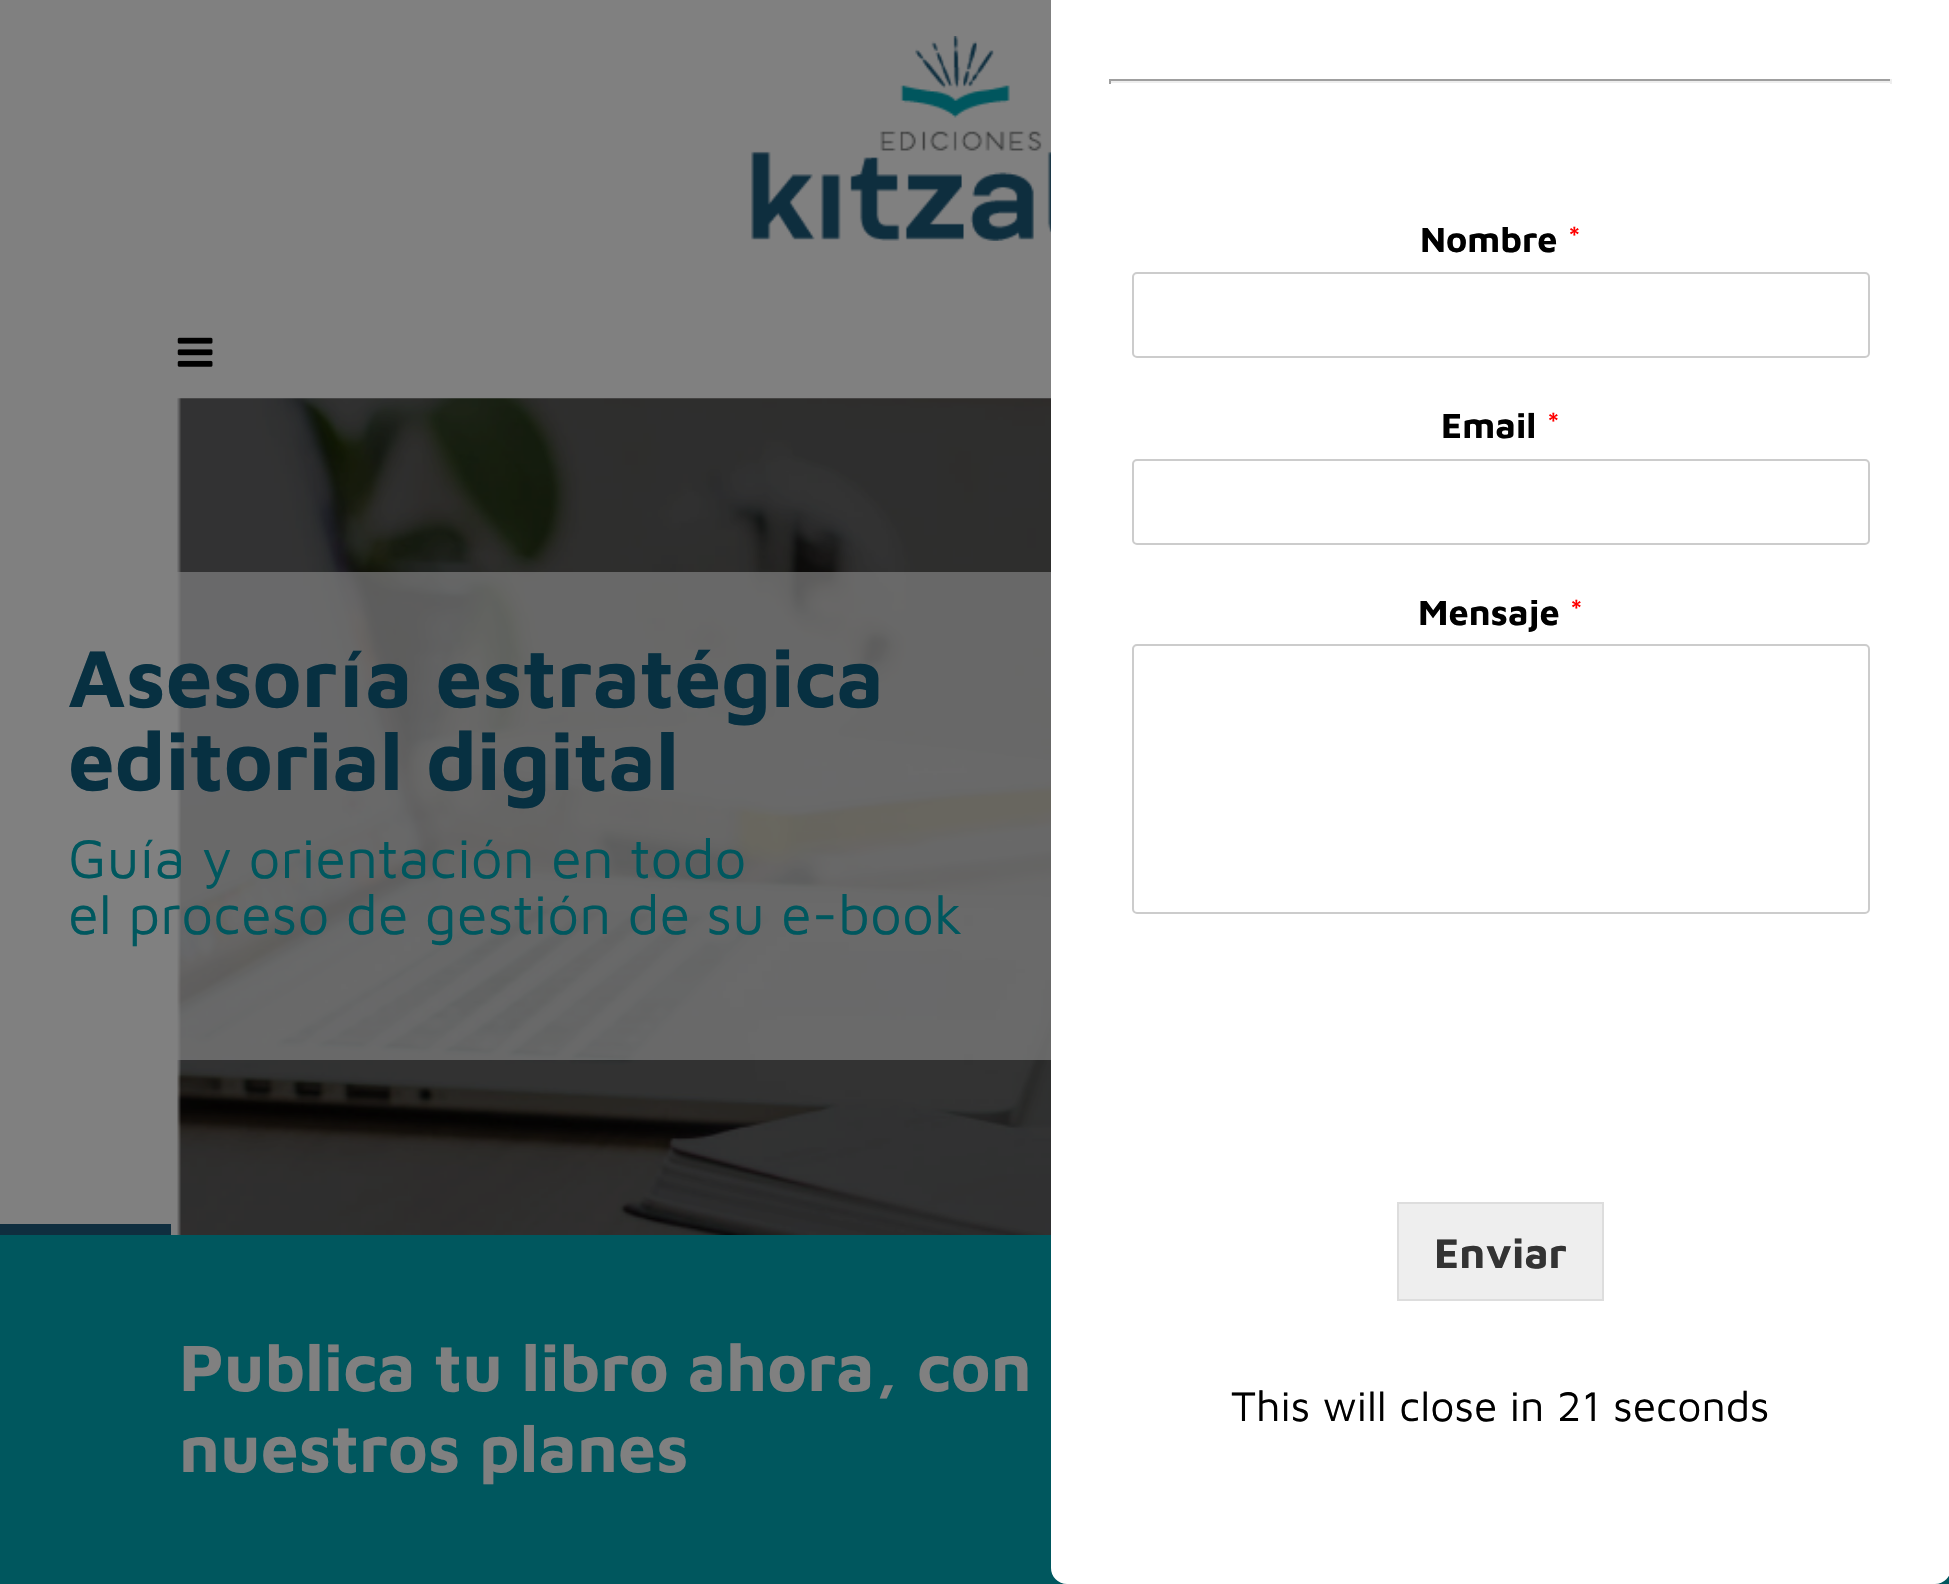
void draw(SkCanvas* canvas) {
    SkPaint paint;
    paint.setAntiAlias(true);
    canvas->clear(0xFF808080);
    canvas->drawImageRect(SkImages::DeferredFromEncodedData(SkData::MakeFromFileName("img1.png")), SkRect::MakeXYWH(751, 36, 300, 205), SkSamplingOptions());
    canvas->drawImageRect(SkImages::DeferredFromEncodedData(SkData::MakeFromFileName("img2.png")), SkRect::MakeXYWH(177, 337, 36, 30), SkSamplingOptions());
    canvas->drawImageRect(SkImages::DeferredFromEncodedData(SkData::MakeFromFileName("img3.png")), SkRect::MakeXYWH(177, 398, 874, 837), SkSamplingOptions());
    paint.setColor(0xB3808080);
    canvas->drawRect(SkRect::MakeXYWH(177, 572, 874, 488), paint);
    SkFont font1(fontMgr->matchFamilyStyle("Maven Pro", SkFontStyle::Bold()), 83.25f);
    font1.setSubpixel(true);
    paint.setColor(0xFF073041);
    canvas->drawString("Asesoría estratégica", 68, 707, font1, paint);
    canvas->drawString("editorial digital", 68, 790, font1, paint);
    SkFont font2(fontMgr->matchFamilyStyle("Maven Pro", SkFontStyle::Normal()), 56.25f);
    font2.setSubpixel(true);
    paint.setColor(0xFF00575E);
    canvas->drawString("Guía y orientación en todo", 68, 878, font2, paint);
    canvas->drawString("el proceso de gestión de su e-book", 68, 934, font2, paint);
    paint.setColor(0xFF0F2E3F);
    canvas->drawRect(SkRect::MakeXYWH(0, 1224, 171, 11), paint);
    paint.setColor(0xFF00575E);
    canvas->drawRect(SkRect::MakeXYWH(0, 1235, 1949, 349), paint);
    SkFont font3(fontMgr->matchFamilyStyle("Maven Pro", SkFontStyle::Bold()), 67.5f);
    font3.setSubpixel(true);
    paint.setColor(0xFF808080);
    canvas->drawString("Publica tu libro ahora, con", 179, 1391, font3, paint);
    canvas->drawString("nuestros planes", 179, 1472, font3, paint);
    paint.setColor(0xFFFFFFFF);
    canvas->drawRoundRect(SkRect::MakeXYWH(1052, -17, 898, 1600), 15, 15, paint);
    paint.setStyle(SkPaint::kStroke_Style);
    paint.setStrokeWidth(2);
    canvas->drawRoundRect(SkRect::MakeXYWH(1052, -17, 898, 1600), 15, 15, paint);
    paint.setStyle(SkPaint::kFill_Style);
    paint.setColor(0xFF9F9F9F);
    canvas->drawRect(SkRect::MakeXYWH(1109, 79, 783, 2), paint);
    paint.setColor(0xFFEEEEEE);
    canvas->drawRect(SkRect::MakeXYWH(1890, 79, 2, 5), paint);
    canvas->drawRect(SkRect::MakeXYWH(1109, 81, 783, 2), paint);
    paint.setColor(0xFF9F9F9F);
    canvas->drawRect(SkRect::MakeXYWH(1109, 79, 2, 5), paint);
    SkFont font4(fontMgr->matchFamilyStyle("Maven Pro", SkFontStyle::Bold()), 36);
    font4.setSubpixel(true);
    paint.setColor(0xFF000000);
    canvas->drawString("Nombre", 1420, 252, font4, paint);
    SkFont font5(fontMgr->matchFamilyStyle("Maven Pro", SkFontStyle::Normal()), 36);
    font5.setSubpixel(true);
    paint.setColor(0xFFFF0000);
    canvas->drawString("*", 1567, 252, font5, paint);
    paint.setStyle(SkPaint::kStroke_Style);
    paint.setColor(0xFFCCCCCC);
    canvas->drawRoundRect(SkRect::MakeXYWH(1133, 273, 736, 84), 4, 4, paint);
    paint.setStyle(SkPaint::kFill_Style);
    paint.setColor(0xFF000000);
    canvas->drawString("Email", 1441, 438, font4, paint);
    paint.setColor(0xFFFF0000);
    canvas->drawString("*", 1546, 438, font5, paint);
    paint.setStyle(SkPaint::kStroke_Style);
    paint.setColor(0xFFCCCCCC);
    canvas->drawRoundRect(SkRect::MakeXYWH(1133, 460, 736, 84), 4, 4, paint);
    paint.setStyle(SkPaint::kFill_Style);
    paint.setColor(0xFF000000);
    canvas->drawString("Mensaje", 1418, 625, font4, paint);
    paint.setColor(0xFFFF0000);
    canvas->drawString("*", 1569, 625, font5, paint);
    paint.setStyle(SkPaint::kStroke_Style);
    paint.setColor(0xFFCCCCCC);
    canvas->drawRoundRect(SkRect::MakeXYWH(1133, 645, 736, 268), 4, 4, paint);
    paint.setStyle(SkPaint::kFill_Style);
    paint.setColor(0xFFEEEEEE);
    canvas->drawRect(SkRect::MakeXYWH(1398, 1203, 205, 97), paint);
    paint.setStyle(SkPaint::kStroke_Style);
    paint.setColor(0xFFDDDDDD);
    canvas->drawRect(SkRect::MakeXYWH(1398, 1203, 205, 97), paint);
    SkFont font6(fontMgr->matchFamilyStyle("Maven Pro", SkFontStyle::Bold()), 42.75f);
    font6.setSubpixel(true);
    paint.setStyle(SkPaint::kFill_Style);
    paint.setColor(0xFF333333);
    canvas->drawString("Enviar", 1434, 1268, font6, paint);
    SkFont font7(fontMgr->matchFamilyStyle("Maven Pro", SkFontStyle::Normal()), 42.75f);
    font7.setSubpixel(true);
    paint.setColor(0xFF000000);
    canvas->drawString("This will close in 21 seconds", 1231, 1421, font7, paint);
}
